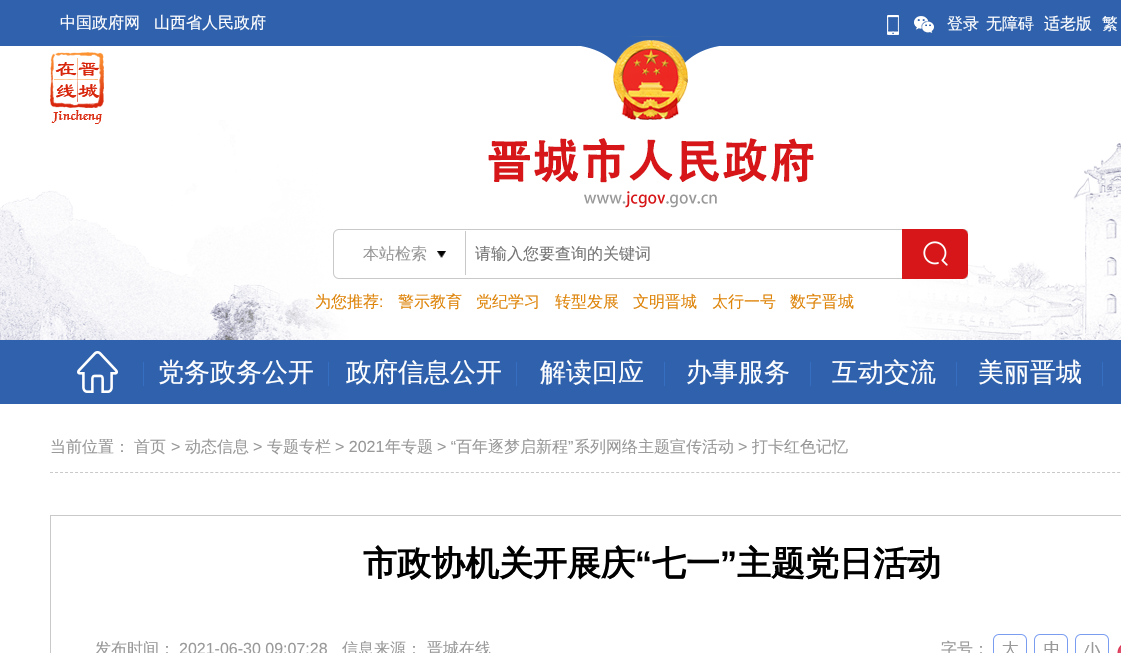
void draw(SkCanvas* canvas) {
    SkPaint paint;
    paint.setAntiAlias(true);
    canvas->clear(0xFFFFFFFF);
    paint.setColor(0xFF2F61AC);
    canvas->drawRect(SkRect::MakeXYWH(0, 0, 1121, 46), paint);
    SkFont font1(fontMgr->matchFamilyStyle("WenQuanYi Zen Hei", SkFontStyle(500, SkFontStyle::kNormal_Width, SkFontStyle::kUpright_Slant)), 16);
    font1.setSubpixel(true);
    paint.setColor(0xFFFFFFFF);
    canvas->drawString("中国政府网", 60, 28, font1, paint);
    canvas->drawString("山西省人民政府", 154, 28, font1, paint);
    canvas->drawImageRect(SkImages::DeferredFromEncodedData(SkData::MakeFromFileName("img1.png")), SkRect::MakeXYWH(887, 15, 12, 20), SkSamplingOptions());
    canvas->drawImageRect(SkImages::DeferredFromEncodedData(SkData::MakeFromFileName("img2.png")), SkRect::MakeXYWH(914, 16, 20, 17), SkSamplingOptions());
    canvas->drawString("登录", 947, 29, font1, paint);
    canvas->drawString("无障碍", 986, 29, font1, paint);
    canvas->drawString("适老版", 1044, 29, font1, paint);
    canvas->drawString("繁", 1102, 29, font1, paint);
    canvas->drawImageRect(SkImages::DeferredFromEncodedData(SkData::MakeFromFileName("img3.png")), SkRect::MakeXYWH(0, 46, 1121, 294), SkSamplingOptions());
    canvas->drawImageRect(SkImages::DeferredFromEncodedData(SkData::MakeFromFileName("img4.png")), SkRect::MakeXYWH(50, 52, 54, 72), SkSamplingOptions());
    canvas->drawImageRect(SkImages::DeferredFromEncodedData(SkData::MakeFromFileName("img5.png")), SkRect::MakeXYWH(488, 36, 326, 172), SkSamplingOptions());
    canvas->drawImageRect(SkImages::DeferredFromEncodedData(SkData::MakeFromFileName("img6.png")), SkRect::MakeXYWH(333, 229, 635, 50), SkSamplingOptions());
    paint.setColor(0xFFC9C9C9);
    canvas->drawRect(SkRect::MakeXYWH(465, 231, 1, 44), paint);
    paint.setColor(0xFF999999);
    canvas->drawString("本站检索", 363, 259, font1, paint);
    canvas->drawImageRect(SkImages::DeferredFromEncodedData(SkData::MakeFromFileName("img7.png")), SkRect::MakeXYWH(437, 251, 9, 7), SkSamplingOptions());
    paint.setColor(0xFF757575);
    canvas->drawString("请输入您要查询的关键词", 475, 259, font1, paint);
    canvas->drawImageRect(SkImages::DeferredFromEncodedData(SkData::MakeFromFileName("img8.png")), SkRect::MakeXYWH(902, 229, 66, 50), SkSamplingOptions());
    paint.setColor(0xFFDE850B);
    canvas->drawString("为您推荐", 315, 307, font1, paint);
    SkFont font2(fontMgr->matchFamilyStyle("Liberation Sans", SkFontStyle::Normal()), 16);
    font2.setSubpixel(true);
    canvas->drawString(":", 379, 307, font2, paint);
    canvas->drawString("警示教育", 398, 307, font1, paint);
    canvas->drawString("党纪学习", 476, 307, font1, paint);
    canvas->drawString("转型发展", 555, 307, font1, paint);
    canvas->drawString("文明晋城", 633, 307, font1, paint);
    canvas->drawString("太行一号", 712, 307, font1, paint);
    canvas->drawString("数字晋城", 790, 307, font1, paint);
    paint.setColor(0xFF2F61AC);
    canvas->drawRect(SkRect::MakeXYWH(0, 340, 1121, 64), paint);
    canvas->drawImageRect(SkImages::DeferredFromEncodedData(SkData::MakeFromFileName("img9.png")), SkRect::MakeXYWH(77, 351, 41, 42), SkSamplingOptions());
    paint.setColor(0xFF366EC2);
    canvas->drawRect(SkRect::MakeXYWH(143, 362, 1, 24), paint);
    SkFont font3(fontMgr->matchFamilyStyle("WenQuanYi Zen Hei", SkFontStyle(500, SkFontStyle::kNormal_Width, SkFontStyle::kUpright_Slant)), 26);
    font3.setSubpixel(true);
    paint.setColor(0xFFFFFFFF);
    canvas->drawString("党务政务公开", 158, 381, font3, paint);
    paint.setColor(0xFF366EC2);
    canvas->drawRect(SkRect::MakeXYWH(328, 362, 1, 24), paint);
    paint.setColor(0xFFFFFFFF);
    canvas->drawString("政府信息公开", 346, 381, font3, paint);
    paint.setColor(0xFF366EC2);
    canvas->drawRect(SkRect::MakeXYWH(516, 362, 1, 24), paint);
    paint.setColor(0xFFFFFFFF);
    canvas->drawString("解读回应", 540, 381, font3, paint);
    paint.setColor(0xFF366EC2);
    canvas->drawRect(SkRect::MakeXYWH(664, 362, 1, 24), paint);
    paint.setColor(0xFFFFFFFF);
    canvas->drawString("办事服务", 686, 381, font3, paint);
    paint.setColor(0xFF366EC2);
    canvas->drawRect(SkRect::MakeXYWH(810, 362, 1, 24), paint);
    paint.setColor(0xFFFFFFFF);
    canvas->drawString("互动交流", 832, 381, font3, paint);
    paint.setColor(0xFF366EC2);
    canvas->drawRect(SkRect::MakeXYWH(956, 362, 1, 24), paint);
    paint.setColor(0xFFFFFFFF);
    canvas->drawString("美丽晋城", 978, 381, font3, paint);
    paint.setColor(0xFF366EC2);
    canvas->drawRect(SkRect::MakeXYWH(1102, 362, 1, 24), paint);
    paint.setStyle(SkPaint::kStroke_Style);
    paint.setStrokeWidth(1);
    paint.setColor(0xFFC9C9C9);
    paint.setPathEffect(SkDashPathEffect::Make({{3, 2.01f}}, 0));
    canvas->drawPath(SkPathBuilder().moveTo(50, 472.5f).lineTo(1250, 472.5f).detach(), paint);
    paint.setPathEffect(nullptr);
    paint.setStyle(SkPaint::kFill_Style);
    paint.setColor(0xFF999999);
    canvas->drawString("当前位置：", 50, 452, font1, paint);
    canvas->drawString("首页", 134, 452, font1, paint);
    canvas->drawString(">", 171, 452, font2, paint);
    canvas->drawString("动态信息", 185, 452, font1, paint);
    canvas->drawString(">", 253, 452, font2, paint);
    canvas->drawString("专题专栏", 267, 452, font1, paint);
    canvas->drawString("> 2021", 335, 452, font2, paint);
    canvas->drawString("年专题", 385, 452, font1, paint);
    canvas->drawString("> “", 437, 452, font2, paint);
    canvas->drawString("百年逐梦启新程", 456, 452, font1, paint);
    canvas->drawString("”", 568, 452, font2, paint);
    canvas->drawString("系列网络主题宣传活动", 574, 452, font1, paint);
    canvas->drawString(">", 738, 452, font2, paint);
    canvas->drawString("打卡红色记忆", 752, 452, font1, paint);
    paint.setStyle(SkPaint::kStroke_Style);
    paint.setColor(0xFFC9C9C9);
    canvas->drawRect(SkRect::MakeXYWH(50.5f, 515.5f, 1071, 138), paint);
    SkFont font4(fontMgr->matchFamilyStyle("WenQuanYi Zen Hei", SkFontStyle::Bold()), 34);
    font4.setSubpixel(true);
    paint.setStyle(SkPaint::kFill_Style);
    paint.setColor(0xFF000000);
    canvas->drawString("市政协机关开展庆", 363, 575, font4, paint);
    SkFont font5(fontMgr->matchFamilyStyle("Liberation Sans", SkFontStyle::Bold()), 34);
    font5.setSubpixel(true);
    canvas->drawString("“", 635, 575, font5, paint);
    canvas->drawString("七一", 652, 575, font4, paint);
    canvas->drawString("”", 720, 575, font5, paint);
    canvas->drawString("主题党日活动", 737, 575, font4, paint);
    paint.setColor(0xFF999999);
    canvas->drawString("发布时间：", 95, 654, font1, paint);
    canvas->drawString("2021-06-30 09:07:28", 179, 654, font2, paint);
    canvas->drawString("信息来源：", 342, 654, font1, paint);
    canvas->drawString("晋城在线", 427, 654, font1, paint);
    canvas->drawString("字号：", 941, 654, font1, paint);
    canvas->drawImageRect(SkImages::DeferredFromEncodedData(SkData::MakeFromFileName("img10.png")), SkRect::MakeXYWH(993, 634, 34, 19), SkSamplingOptions());
    canvas->drawImageRect(SkImages::DeferredFromEncodedData(SkData::MakeFromFileName("img11.png")), SkRect::MakeXYWH(1034, 634, 34, 19), SkSamplingOptions());
    canvas->drawImageRect(SkImages::DeferredFromEncodedData(SkData::MakeFromFileName("img12.png")), SkRect::MakeXYWH(1075, 634, 34, 19), SkSamplingOptions());
    canvas->drawImageRect(SkImages::DeferredFromEncodedData(SkData::MakeFromFileName("img13.png")), SkRect::MakeXYWH(1117, 645, 4, 8), SkSamplingOptions());
}
